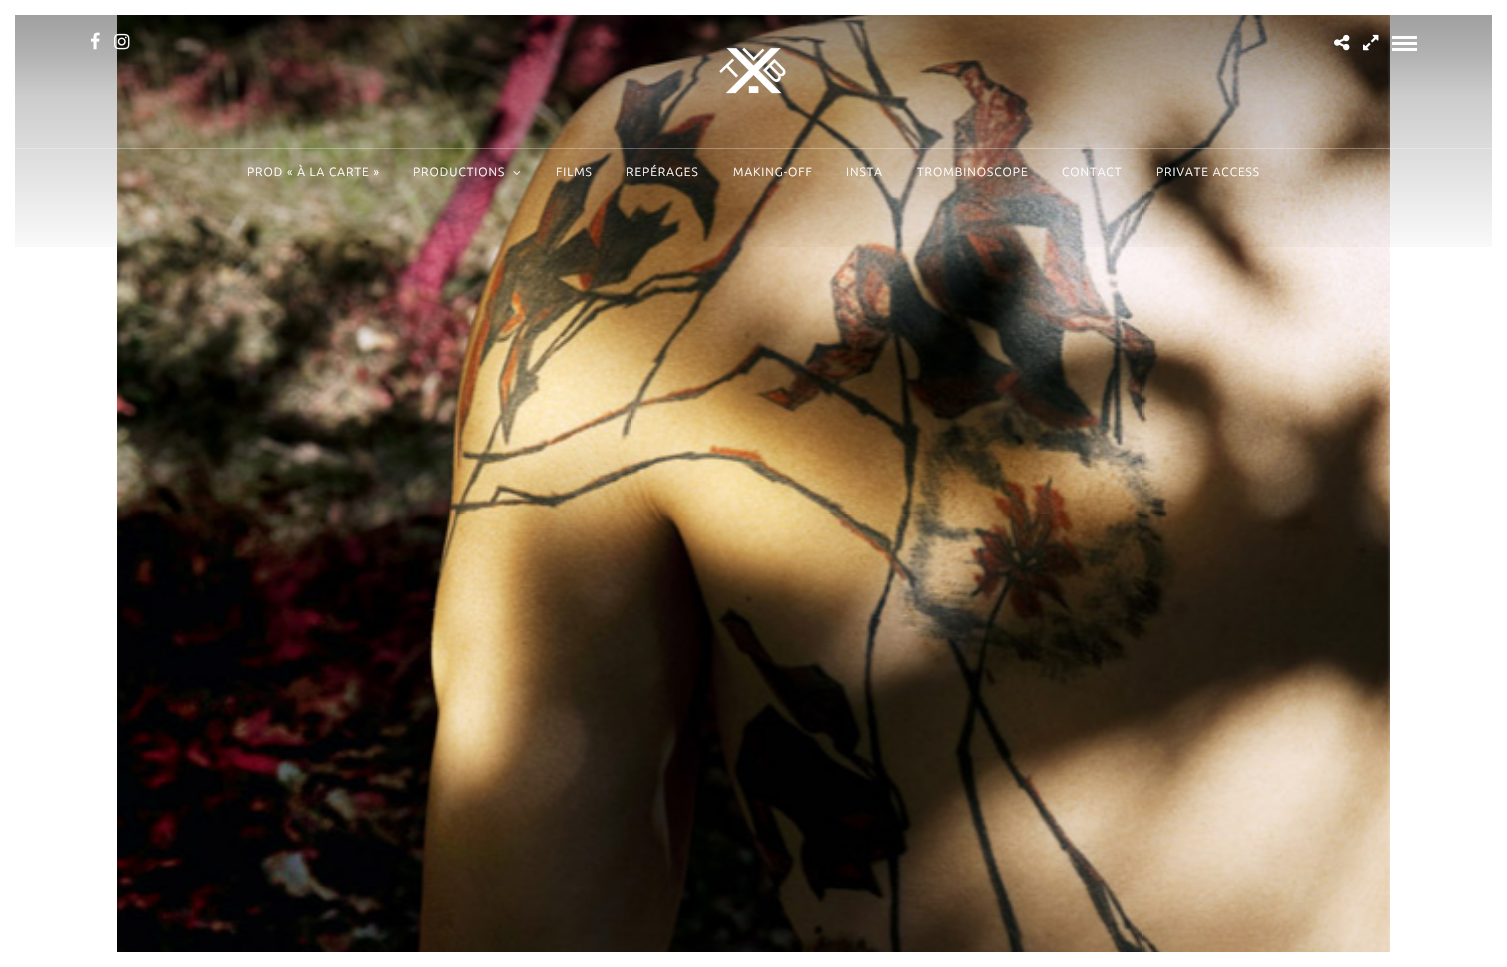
void draw(SkCanvas* canvas) {
    SkPaint paint;
    paint.setAntiAlias(true);
    auto spacedText = [&](const char* s, float x, float y, const SkFont& font, const SkPaint& ink, float letter, float word) {
        std::vector<SkGlyphID> glyphs(font.countText(s, strlen(s), SkTextEncoding::kUTF8));
        std::vector<float> xs(glyphs.size());
        font.textToGlyphs(s, strlen(s), SkTextEncoding::kUTF8, glyphs);
        font.getXPos(glyphs, xs, x);
        float extra = 0;
        for (size_t i = 0; i < glyphs.size(); i++) {
            xs[i] += extra;
            extra += letter + word * (glyphs[i] == font.unicharToGlyph(' '));
        }
        canvas->drawTextBlob(SkTextBlob::MakeFromPosHGlyphs(glyphs, xs, y, font), 0, 0, ink);
    };
    canvas->clear(0xFFFFFFFF);
    canvas->drawImageRect(SkImages::DeferredFromEncodedData(SkData::MakeFromFileName("img1.png")), SkRect::MakeXYWH(117, 15, 1273, 937), SkSamplingOptions());
    {
        const SkColor colors[] = {0x66000000, 0x4D000000, 0x33000000, 0x00000000};
        const float stops[] = {0, 0.2f, 0.35f, 0.97f};
        const SkPoint ends[] = {{754, 0}, {754, 274}};
        paint.setShader(SkGradientShader::MakeLinear(ends, colors, stops, 4, SkTileMode::kClamp));
        paint.setAlpha(255);
    }
    canvas->drawRect(SkRect::MakeXYWH(15, 15, 1477, 232), paint);
    paint.setShader(nullptr);
    paint.setColor(0x4DFFFFFF);
    canvas->drawRect(SkRect::MakeXYWH(15, 148, 1477, 1), paint);
    canvas->drawImageRect(SkImages::DeferredFromEncodedData(SkData::MakeFromFileName("img2.png")), SkRect::MakeXYWH(91, 32, 9, 18), SkSamplingOptions());
    canvas->drawImageRect(SkImages::DeferredFromEncodedData(SkData::MakeFromFileName("img3.png")), SkRect::MakeXYWH(114, 33, 16, 17), SkSamplingOptions());
    canvas->drawImageRect(SkImages::DeferredFromEncodedData(SkData::MakeFromFileName("img4.png")), SkRect::MakeXYWH(1334, 34, 16, 17), SkSamplingOptions());
    canvas->drawImageRect(SkImages::DeferredFromEncodedData(SkData::MakeFromFileName("img5.png")), SkRect::MakeXYWH(1363, 34, 16, 17), SkSamplingOptions());
    paint.setColor(0xFFFFFFFF);
    canvas->drawRect(SkRect::MakeXYWH(1392, 36, 25, 3), paint);
    canvas->drawRect(SkRect::MakeXYWH(1392, 42, 25, 3), paint);
    canvas->drawRect(SkRect::MakeXYWH(1392, 48, 25, 3), paint);
    canvas->drawImageRect(SkImages::DeferredFromEncodedData(SkData::MakeFromFileName("img6.png")), SkRect::MakeXYWH(719, 47, 67, 47), SkSamplingOptions());
    SkFont font1(fontMgr->matchFamilyStyle("Ubuntu", SkFontStyle(300, SkFontStyle::kNormal_Width, SkFontStyle::kUpright_Slant)), 12);
    font1.setSubpixel(true);
    spacedText("PROD « À LA CARTE »", 247, 176, font1, paint, 1, 0);
    spacedText("PRODUCTIONS", 413, 176, font1, paint, 1, 0);
    canvas->drawImageRect(SkImages::DeferredFromEncodedData(SkData::MakeFromFileName("img7.png")), SkRect::MakeXYWH(513, 171, 8, 4), SkSamplingOptions());
    spacedText("FILMS", 556, 176, font1, paint, 1, 0);
    spacedText("REPÉRAGES", 626, 176, font1, paint, 1, 0);
    spacedText("MAKING-OFF", 733, 176, font1, paint, 1, 0);
    spacedText("INSTA", 846, 176, font1, paint, 1, 0);
    spacedText("TROMBINOSCOPE", 917, 176, font1, paint, 1, 0);
    spacedText("CONTACT", 1062, 176, font1, paint, 1, 0);
    spacedText("PRIVATE ACCESS", 1156, 176, font1, paint, 1, 0);
}
